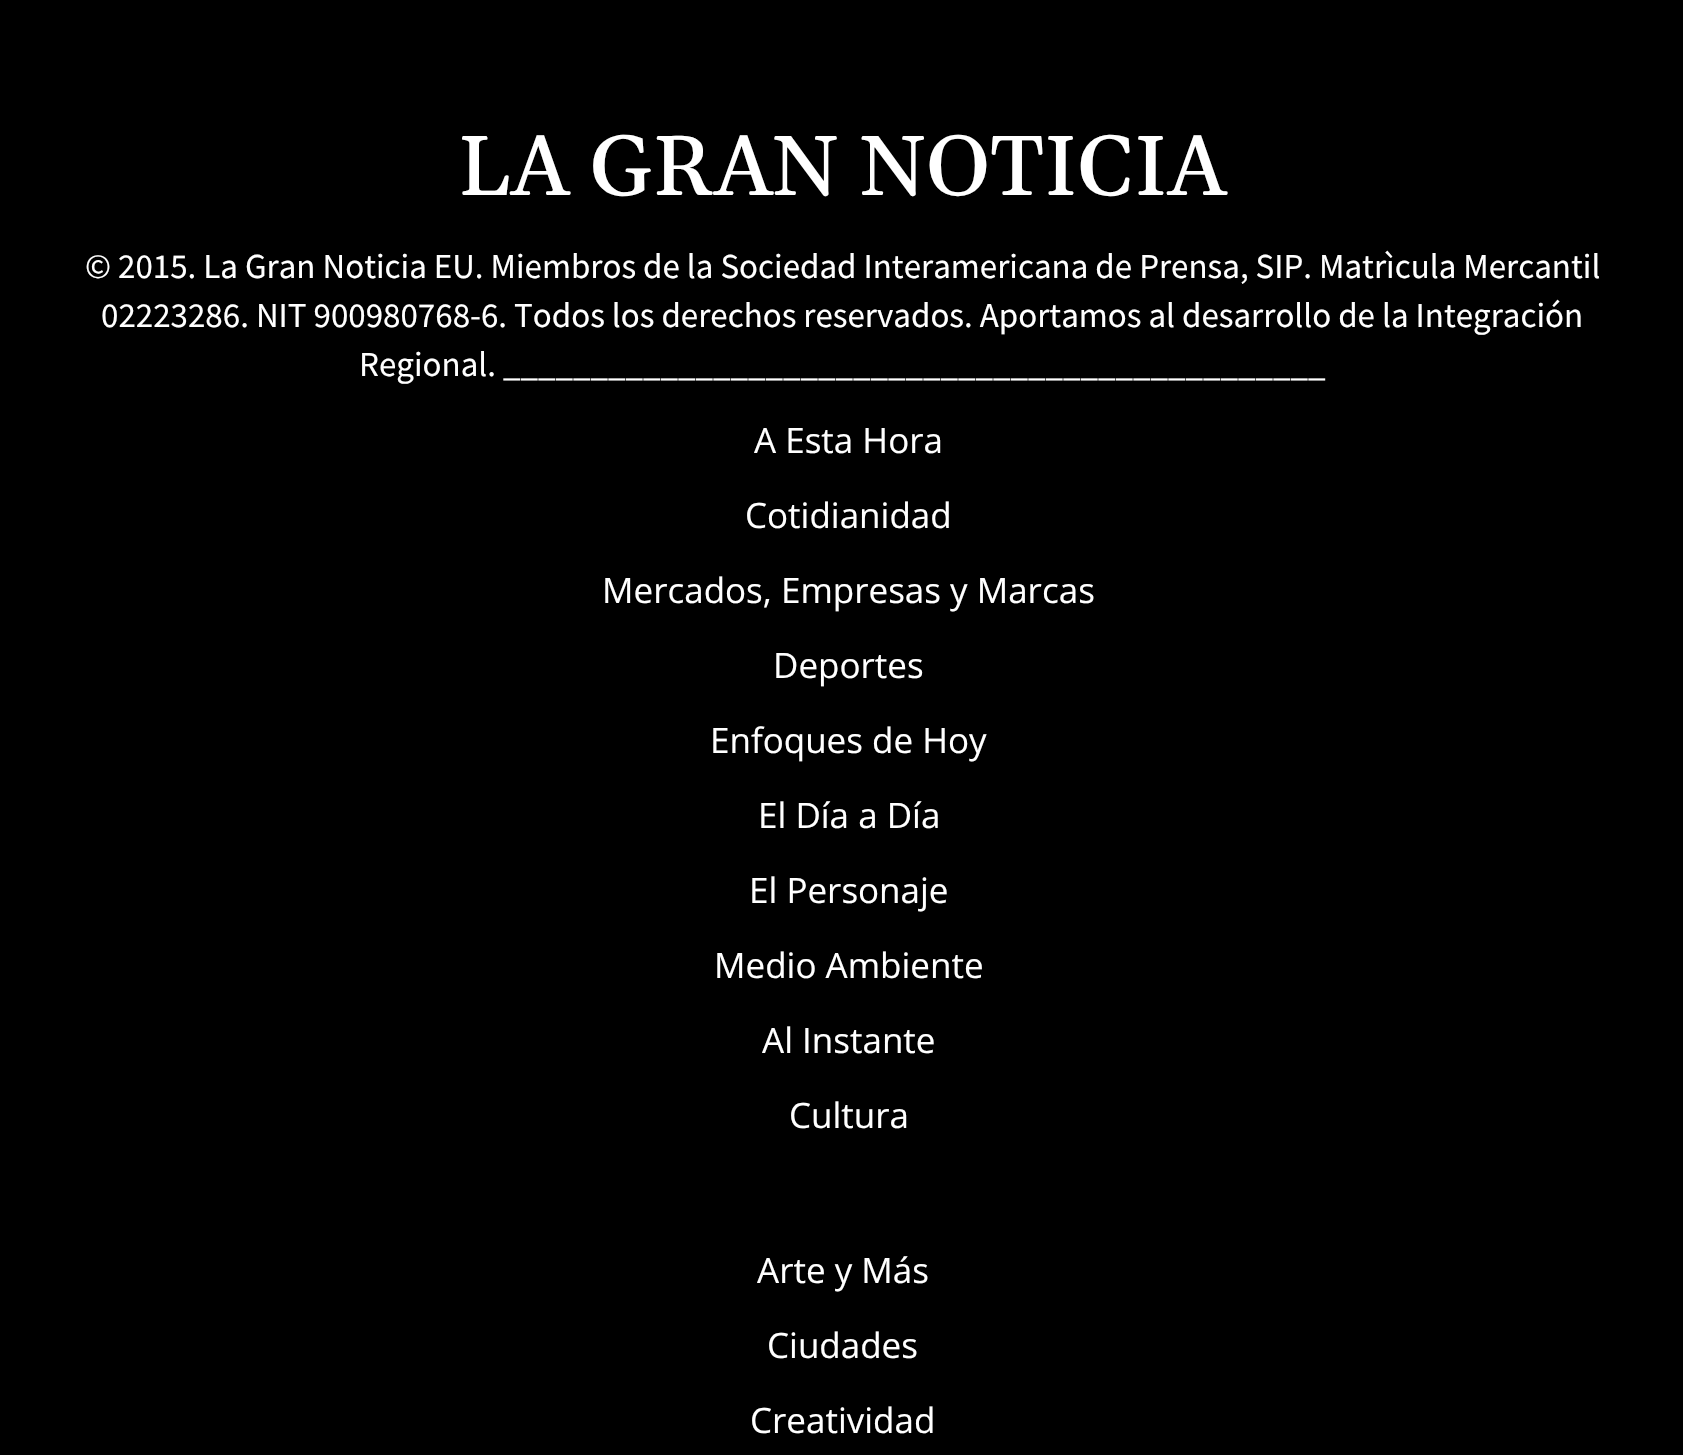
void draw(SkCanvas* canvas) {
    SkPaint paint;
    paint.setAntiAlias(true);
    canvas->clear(0xFF000000);
    SkFont font1(fontMgr->matchFamilyStyle("Gelasio", SkFontStyle(500, SkFontStyle::kNormal_Width, SkFontStyle::kUpright_Slant)), 85);
    font1.setSubpixel(true);
    paint.setColor(0xFFFFFFFF);
    canvas->drawString("LA GRAN NOTICIA", 458, 195, font1, paint);
    SkFont font2(fontMgr->matchFamilyStyle("Source Sans Pro", SkFontStyle::Normal()), 35);
    font2.setSubpixel(true);
    canvas->drawString("© 2015. La Gran Noticia EU. Miembros de la Sociedad Interamericana de Prensa, SIP. Matrìcula Mercantil", 85, 278, font2, paint);
    canvas->drawString("02223286. NIT 900980768-6. Todos los derechos reservados. Aportamos al desarrollo de la Integración", 101, 327, font2, paint);
    canvas->drawString("Regional. _______________________________________________", 359, 376, font2, paint);
    SkFont font3(fontMgr->matchFamilyStyle("Open Sans", SkFontStyle::Normal()), 35);
    font3.setSubpixel(true);
    canvas->drawString("A Esta Hora", 754, 453, font3, paint);
    canvas->drawString("Cotidianidad", 745, 528, font3, paint);
    canvas->drawString("Mercados, Empresas y Marcas", 602, 603, font3, paint);
    canvas->drawString("Deportes", 773, 678, font3, paint);
    canvas->drawString("Enfoques de Hoy", 710, 753, font3, paint);
    canvas->drawString("El Día a Día", 758, 828, font3, paint);
    canvas->drawString("El Personaje", 749, 903, font3, paint);
    canvas->drawString("Medio Ambiente", 714, 978, font3, paint);
    canvas->drawString("Al Instante", 762, 1053, font3, paint);
    canvas->drawString("Cultura", 789, 1128, font3, paint);
    canvas->drawString("Arte y Más", 757, 1283, font3, paint);
    canvas->drawString("Ciudades", 767, 1358, font3, paint);
    canvas->drawString("Creatividad", 750, 1433, font3, paint);
}
